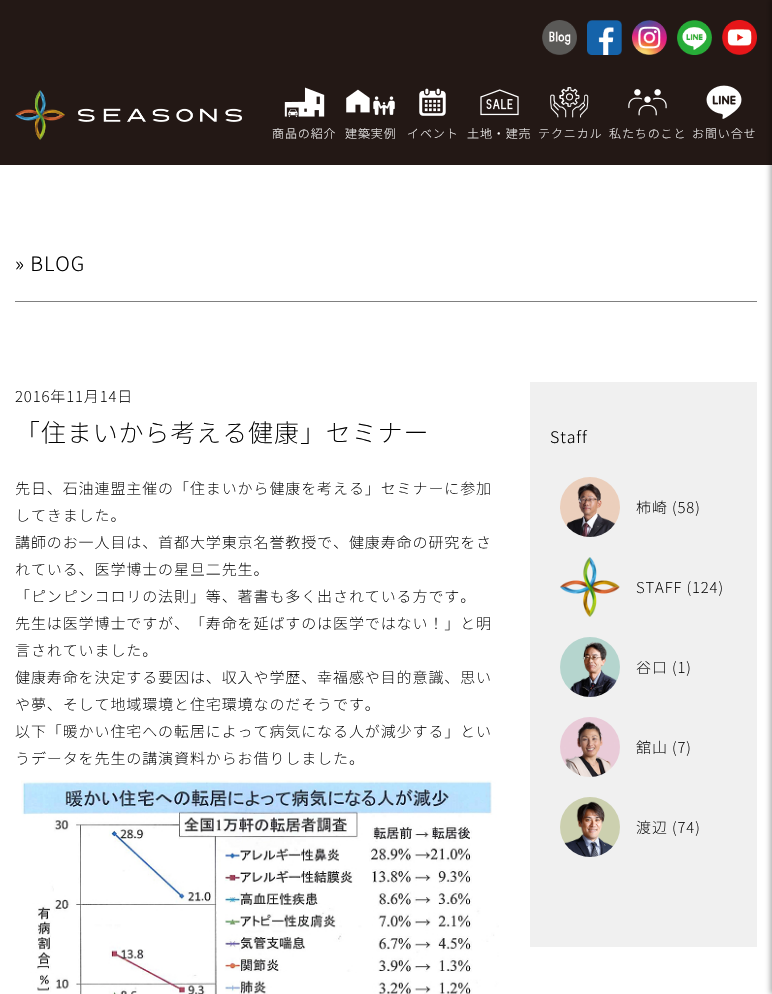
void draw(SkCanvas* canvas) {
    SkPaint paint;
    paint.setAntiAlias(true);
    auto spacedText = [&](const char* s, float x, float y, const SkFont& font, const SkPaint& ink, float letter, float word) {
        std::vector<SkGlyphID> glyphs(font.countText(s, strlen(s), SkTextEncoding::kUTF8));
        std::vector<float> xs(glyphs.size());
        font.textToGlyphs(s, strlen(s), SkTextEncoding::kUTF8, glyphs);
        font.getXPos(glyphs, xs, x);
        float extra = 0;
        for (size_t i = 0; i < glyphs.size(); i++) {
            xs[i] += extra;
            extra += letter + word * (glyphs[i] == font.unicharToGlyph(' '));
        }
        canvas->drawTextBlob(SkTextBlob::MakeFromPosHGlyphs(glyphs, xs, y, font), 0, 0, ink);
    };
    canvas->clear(0xFFFFFFFF);
    paint.setColor(0xFF231815);
    canvas->drawRect(SkRect::MakeXYWH(0, 0, 772, 165), paint);
    canvas->drawImageRect(SkImages::DeferredFromEncodedData(SkData::MakeFromFileName("img1.png")), SkRect::MakeXYWH(542, 20, 35, 35), SkSamplingOptions());
    canvas->drawImageRect(SkImages::DeferredFromEncodedData(SkData::MakeFromFileName("img2.png")), SkRect::MakeXYWH(587, 20, 35, 35), SkSamplingOptions());
    canvas->drawImageRect(SkImages::DeferredFromEncodedData(SkData::MakeFromFileName("img3.png")), SkRect::MakeXYWH(632, 20, 35, 35), SkSamplingOptions());
    canvas->drawImageRect(SkImages::DeferredFromEncodedData(SkData::MakeFromFileName("img4.png")), SkRect::MakeXYWH(677, 20, 35, 35), SkSamplingOptions());
    canvas->drawImageRect(SkImages::DeferredFromEncodedData(SkData::MakeFromFileName("img5.png")), SkRect::MakeXYWH(722, 20, 35, 35), SkSamplingOptions());
    canvas->drawImageRect(SkImages::DeferredFromEncodedData(SkData::MakeFromFileName("img6.png")), SkRect::MakeXYWH(15, 90, 227, 50), SkSamplingOptions());
    canvas->drawImageRect(SkImages::DeferredFromEncodedData(SkData::MakeFromFileName("img7.png")), SkRect::MakeXYWH(284, 87, 41, 30), SkSamplingOptions());
    SkFont font1(fontMgr->matchFamilyStyle("Noto Sans JP", SkFontStyle(200, SkFontStyle::kNormal_Width, SkFontStyle::kUpright_Slant)), 12);
    font1.setSubpixel(true);
    paint.setColor(0xFFFFFFFF);
    spacedText("商品の紹介", 272, 138, font1, paint, 0.9f, 0);
    canvas->drawImageRect(SkImages::DeferredFromEncodedData(SkData::MakeFromFileName("img8.png")), SkRect::MakeXYWH(346, 89, 49, 26), SkSamplingOptions());
    spacedText("建築実例", 345, 138, font1, paint, 0.9f, 0);
    canvas->drawImageRect(SkImages::DeferredFromEncodedData(SkData::MakeFromFileName("img9.png")), SkRect::MakeXYWH(419, 88, 27, 28), SkSamplingOptions());
    spacedText("イベント", 407, 138, font1, paint, 0.9f, 0);
    canvas->drawImageRect(SkImages::DeferredFromEncodedData(SkData::MakeFromFileName("img10.png")), SkRect::MakeXYWH(480, 89, 39, 27), SkSamplingOptions());
    spacedText("土地・建売", 467, 138, font1, paint, 0.9f, 0);
    canvas->drawImageRect(SkImages::DeferredFromEncodedData(SkData::MakeFromFileName("img11.png")), SkRect::MakeXYWH(550, 87, 39, 31), SkSamplingOptions());
    spacedText("テクニカル", 538, 138, font1, paint, 0.9f, 0);
    canvas->drawImageRect(SkImages::DeferredFromEncodedData(SkData::MakeFromFileName("img12.png")), SkRect::MakeXYWH(628, 89, 39, 27), SkSamplingOptions());
    spacedText("私たちのこと", 609, 138, font1, paint, 0.9f, 0);
    canvas->drawImageRect(SkImages::DeferredFromEncodedData(SkData::MakeFromFileName("img13.png")), SkRect::MakeXYWH(706, 85, 36, 34), SkSamplingOptions());
    spacedText("お問い合せ", 692, 138, font1, paint, 0.9f, 0);
    paint.setColor(0x4D000000);
    paint.setMaskFilter(SkMaskFilter::MakeBlur(kNormal_SkBlurStyle, 2.5f));
    canvas->drawRect(SkRect::MakeXYWH(770, 0, 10, 994), paint);
    paint.setMaskFilter(nullptr);
    paint.setColor(0xFF808080);
    canvas->drawRect(SkRect::MakeXYWH(15, 301, 742, 1), paint);
    SkFont font2(fontMgr->matchFamilyStyle("Noto Sans JP", SkFontStyle(300, SkFontStyle::kNormal_Width, SkFontStyle::kUpright_Slant)), 20);
    font2.setSubpixel(true);
    paint.setColor(0xFF000000);
    spacedText("» BLOG", 15, 271, font2, paint, 0.9f, 0);
    SkFont font3(fontMgr->matchFamilyStyle("Noto Sans JP", SkFontStyle(200, SkFontStyle::kNormal_Width, SkFontStyle::kUpright_Slant)), 15);
    font3.setSubpixel(true);
    spacedText("2016年11月14日", 15, 402, font3, paint, 0.9f, 0);
    SkFont font4(fontMgr->matchFamilyStyle("Noto Sans JP", SkFontStyle(200, SkFontStyle::kNormal_Width, SkFontStyle::kUpright_Slant)), 25);
    font4.setSubpixel(true);
    spacedText("「住まいから考える健康」セミナー", 15, 442, font4, paint, 0.9f, 0);
    spacedText("先日、石油連盟主催の「住まいから健康を考える」セミナーに参加", 15, 494, font3, paint, 0.9f, 0);
    spacedText("してきました。", 15, 521, font3, paint, 0.9f, 0);
    spacedText("講師のお一人目は、首都大学東京名誉教授で、健康寿命の研究をさ", 15, 548, font3, paint, 0.9f, 0);
    spacedText("れている、医学博士の星旦二先生。", 15, 575, font3, paint, 0.9f, 0);
    spacedText("「ピンピンコロリの法則」等、著書も多く出されている方です。", 15, 602, font3, paint, 0.9f, 0);
    spacedText("先生は医学博士ですが、「寿命を延ばすのは医学ではない！」と明", 15, 629, font3, paint, 0.9f, 0);
    spacedText("言されていました。", 15, 656, font3, paint, 0.9f, 0);
    spacedText("健康寿命を決定する要因は、収入や学歴、幸福感や目的意識、思い", 15, 683, font3, paint, 0.9f, 0);
    spacedText("や夢、そして地域環境と住宅環境なのだそうです。", 15, 710, font3, paint, 0.9f, 0);
    spacedText("以下「暖かい住宅への転居によって病気になる人が減少する」とい", 15, 737, font3, paint, 0.9f, 0);
    spacedText("うデータを先生の講演資料からお借りしました。", 15, 764, font3, paint, 0.9f, 0);
    canvas->drawImageRect(SkImages::DeferredFromEncodedData(SkData::MakeFromFileName("img14.png")), SkRect::MakeXYWH(21, 780, 478, 214), SkSamplingOptions());
    paint.setColor(0xFFF0F0F0);
    canvas->drawRect(SkRect::MakeXYWH(530, 382, 227, 565), paint);
    SkFont font5(fontMgr->matchFamilyStyle("Noto Sans JP", SkFontStyle(300, SkFontStyle::kNormal_Width, SkFontStyle::kUpright_Slant)), 16);
    font5.setSubpixel(true);
    paint.setColor(0xFF000000);
    spacedText("Staff", 550, 443, font5, paint, 0.9f, 0);
    canvas->drawImageRect(SkImages::DeferredFromEncodedData(SkData::MakeFromFileName("img15.png")), SkRect::MakeXYWH(560, 477, 60, 60), SkSamplingOptions());
    spacedText("柿崎 (58)", 636, 513, font3, paint, 0.9f, 0);
    canvas->drawImageRect(SkImages::DeferredFromEncodedData(SkData::MakeFromFileName("img16.png")), SkRect::MakeXYWH(560, 557, 60, 60), SkSamplingOptions());
    spacedText("STAFF (124)", 636, 593, font3, paint, 0.9f, 0);
    canvas->drawImageRect(SkImages::DeferredFromEncodedData(SkData::MakeFromFileName("img17.png")), SkRect::MakeXYWH(560, 637, 60, 60), SkSamplingOptions());
    spacedText("谷口 (1)", 636, 673, font3, paint, 0.9f, 0);
    canvas->drawImageRect(SkImages::DeferredFromEncodedData(SkData::MakeFromFileName("img18.png")), SkRect::MakeXYWH(560, 717, 60, 60), SkSamplingOptions());
    spacedText("舘山 (7)", 636, 753, font3, paint, 0.9f, 0);
    canvas->drawImageRect(SkImages::DeferredFromEncodedData(SkData::MakeFromFileName("img19.png")), SkRect::MakeXYWH(560, 797, 60, 60), SkSamplingOptions());
    spacedText("渡辺 (74)", 636, 833, font3, paint, 0.9f, 0);
}
